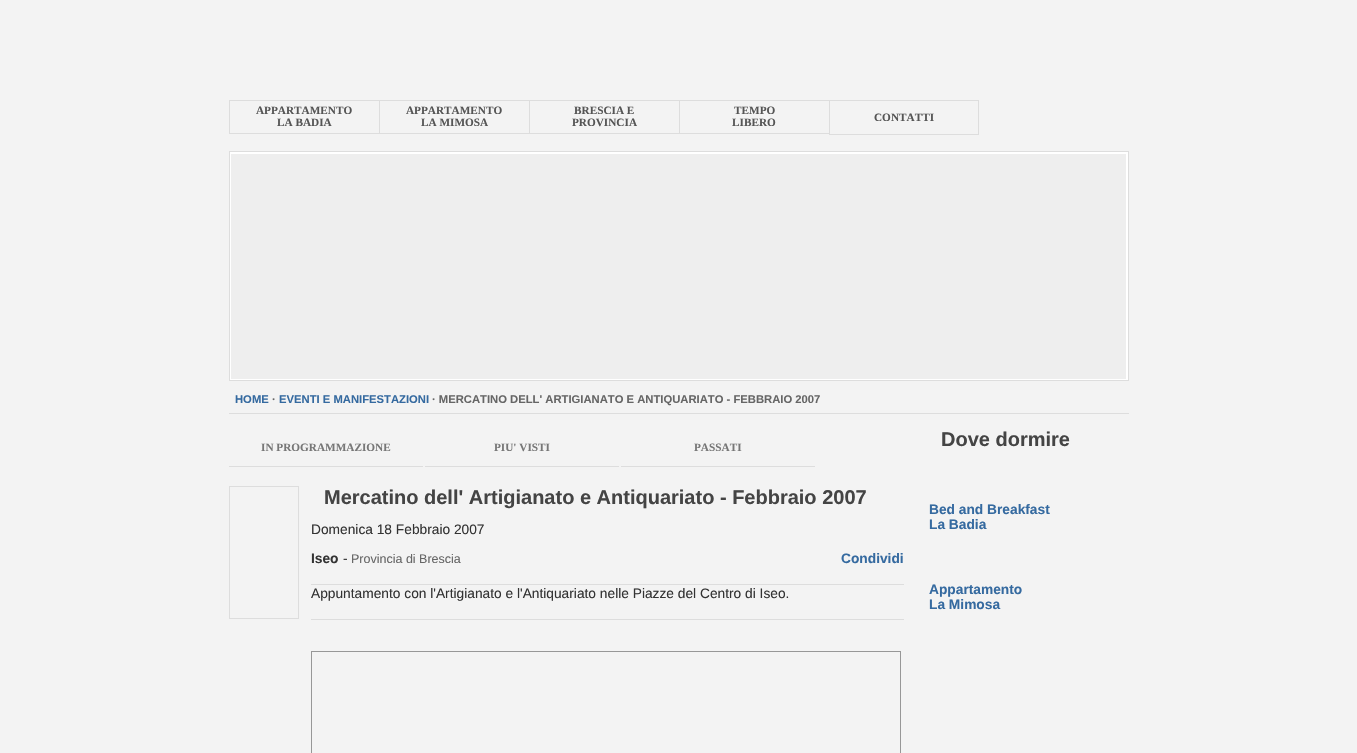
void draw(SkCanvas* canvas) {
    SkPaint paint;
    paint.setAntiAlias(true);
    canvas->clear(0xFFF3F3F3);
    paint.setColor(0xFFDDDDDD);
    canvas->drawRect(SkRect::MakeXYWH(229, 100, 600, 1), paint);
    canvas->drawRect(SkRect::MakeXYWH(229, 133, 600, 1), paint);
    canvas->drawRect(SkRect::MakeXYWH(229, 100, 1, 34), paint);
    SkFont font1(fontMgr->matchFamilyStyle("Liberation Serif", SkFontStyle::Bold()), 11.25f);
    font1.setSubpixel(true);
    paint.setColor(0xFF555555);
    canvas->drawString("APPARTAMENTO", 256, 114, font1, paint);
    canvas->drawString("LA BADIA", 277, 126, font1, paint);
    paint.setColor(0xFFDDDDDD);
    canvas->drawRect(SkRect::MakeXYWH(379, 100, 1, 34), paint);
    paint.setColor(0xFF555555);
    canvas->drawString("APPARTAMENTO", 406, 114, font1, paint);
    canvas->drawString("LA MIMOSA", 421, 126, font1, paint);
    paint.setColor(0xFFDDDDDD);
    canvas->drawRect(SkRect::MakeXYWH(529, 100, 1, 34), paint);
    paint.setColor(0xFF555555);
    canvas->drawString("BRESCIA E", 574, 114, font1, paint);
    canvas->drawString("PROVINCIA", 572, 126, font1, paint);
    paint.setColor(0xFFDDDDDD);
    canvas->drawRect(SkRect::MakeXYWH(679, 100, 1, 34), paint);
    paint.setColor(0xFF555555);
    canvas->drawString("TEMPO", 734, 114, font1, paint);
    canvas->drawString("LIBERO", 732, 126, font1, paint);
    paint.setStyle(SkPaint::kStroke_Style);
    paint.setStrokeWidth(1);
    paint.setColor(0xFFDDDDDD);
    canvas->drawRect(SkRect::MakeXYWH(829.5f, 100.5f, 149, 34), paint);
    paint.setStyle(SkPaint::kFill_Style);
    paint.setColor(0xFF555555);
    canvas->drawString("CONTATTI", 874, 121, font1, paint);
    paint.setColor(0xFFFFFFFF);
    canvas->drawRect(SkRect::MakeXYWH(229.5f, 151.5f, 899, 229), paint);
    paint.setStyle(SkPaint::kStroke_Style);
    paint.setColor(0xFFDDDDDD);
    canvas->drawRect(SkRect::MakeXYWH(229.5f, 151.5f, 899, 229), paint);
    paint.setStyle(SkPaint::kFill_Style);
    paint.setColor(0xFFEEEEEE);
    canvas->drawRect(SkRect::MakeXYWH(231, 154, 895, 225), paint);
    paint.setColor(0xFFDDDDDD);
    canvas->drawRect(SkRect::MakeXYWH(229, 413, 900, 1), paint);
    SkFont font2(fontMgr->matchFamilyStyle("Liberation Sans", SkFontStyle::Bold()), 11.25f);
    font2.setSubpixel(true);
    paint.setColor(0xFF356AA0);
    canvas->drawString("HOME", 235, 403, font2, paint);
    paint.setColor(0xFF666666);
    canvas->drawString("·", 272, 403, font2, paint);
    paint.setColor(0xFF356AA0);
    canvas->drawString("EVENTI E MANIFESTAZIONI", 279, 403, font2, paint);
    paint.setColor(0xFF666666);
    canvas->drawString("· MERCATINO DELL' ARTIGIANATO E ANTIQUARIATO - FEBBRAIO 2007", 432, 403, font2, paint);
    paint.setColor(0xFFDDDDDD);
    canvas->drawRect(SkRect::MakeXYWH(229, 466, 194, 1), paint);
    paint.setColor(0xFF777777);
    canvas->drawString("IN PROGRAMMAZIONE", 261, 451, font1, paint);
    paint.setColor(0xFFDDDDDD);
    canvas->drawRect(SkRect::MakeXYWH(425, 466, 194, 1), paint);
    paint.setColor(0xFF777777);
    canvas->drawString("PIU' VISTI", 494, 451, font1, paint);
    paint.setColor(0xFFDDDDDD);
    canvas->drawRect(SkRect::MakeXYWH(621, 466, 194, 1), paint);
    paint.setColor(0xFF777777);
    canvas->drawString("PASSATI", 694, 451, font1, paint);
    paint.setStyle(SkPaint::kStroke_Style);
    paint.setColor(0xFFDDDDDD);
    canvas->drawRect(SkRect::MakeXYWH(229.5f, 486.5f, 69, 132), paint);
    SkFont font3(fontMgr->matchFamilyStyle("Liberation Sans", SkFontStyle::Bold()), 20);
    font3.setSubpixel(true);
    paint.setStyle(SkPaint::kFill_Style);
    paint.setColor(0xFF444444);
    canvas->drawString("Mercatino dell' Artigianato e Antiquariato - Febbraio 2007", 324, 504, font3, paint);
    SkFont font4(fontMgr->matchFamilyStyle("Liberation Sans", SkFontStyle::Normal()), 13.75f);
    font4.setSubpixel(true);
    paint.setColor(0xFF333333);
    canvas->drawString("Domenica 18 Febbraio 2007", 311, 534, font4, paint);
    SkFont font5(fontMgr->matchFamilyStyle("Liberation Sans", SkFontStyle::Bold()), 13.75f);
    font5.setSubpixel(true);
    canvas->drawString("Iseo", 311, 563, font5, paint);
    canvas->drawString("-", 343, 563, font4, paint);
    SkFont font6(fontMgr->matchFamilyStyle("Liberation Sans", SkFontStyle::Normal()), 12.5f);
    font6.setSubpixel(true);
    paint.setColor(0xFF666666);
    canvas->drawString("Provincia di Brescia", 351, 563, font6, paint);
    paint.setColor(0xFF356AA0);
    canvas->drawString("Condividi", 841, 563, font5, paint);
    paint.setColor(0xFFDDDDDD);
    canvas->drawRect(SkRect::MakeXYWH(311, 584, 593, 1), paint);
    paint.setColor(0xFF333333);
    canvas->drawString("Appuntamento con l'Artigianato e l'Antiquariato nelle Piazze del Centro di Iseo.", 311, 598, font4, paint);
    paint.setColor(0xFFDDDDDD);
    canvas->drawRect(SkRect::MakeXYWH(311, 619, 593, 1), paint);
    paint.setStyle(SkPaint::kStroke_Style);
    paint.setColor(0xFF979797);
    canvas->drawRect(SkRect::MakeXYWH(311.5f, 651.5f, 589, 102), paint);
    paint.setStyle(SkPaint::kFill_Style);
    paint.setColor(0xFF444444);
    canvas->drawString("Dove dormire", 941, 446, font3, paint);
    paint.setColor(0xFF356AA0);
    canvas->drawString("Bed and Breakfast", 929, 514, font5, paint);
    canvas->drawString("La Badia", 929, 529, font5, paint);
    canvas->drawString("Appartamento", 929, 594, font5, paint);
    canvas->drawString("La Mimosa", 929, 609, font5, paint);
}
